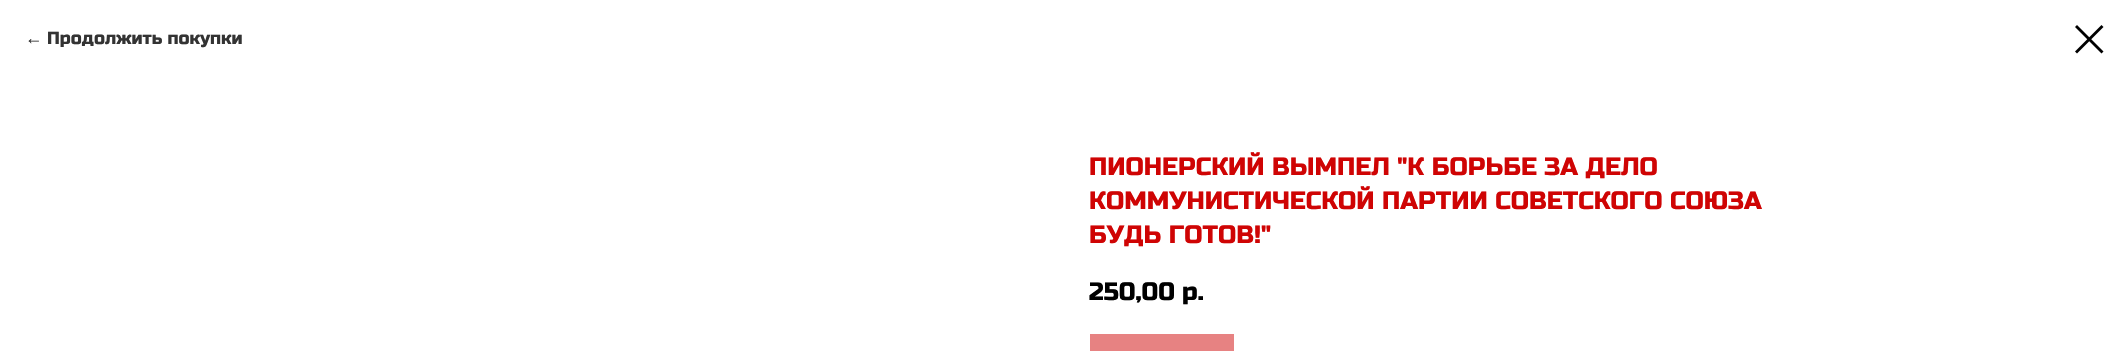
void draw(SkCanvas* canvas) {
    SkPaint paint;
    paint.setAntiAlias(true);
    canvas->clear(0xFFFFFFFF);
    SkFont font1(fontMgr->matchFamilyStyle("Liberation Sans", SkFontStyle::Normal()), 17.5f);
    font1.setSubpixel(true);
    paint.setColor(0xFF333333);
    canvas->drawString("←", 25, 44, font1, paint);
    SkFont font2(fontMgr->matchFamilyStyle("Russo One", SkFontStyle::Normal()), 17.5f);
    font2.setSubpixel(true);
    canvas->drawString("Продолжить покупки", 47, 44, font2, paint);
    paint.setColor(0xFF000000);
    canvas->drawPath(SkPathBuilder(SkPathFillType::kEvenOdd).moveTo(2075, 27).lineTo(2077, 25).lineTo(2103.5f, 51.5f).lineTo(2101.5f, 53.5f).close().detach(), paint);
    canvas->drawPath(SkPathBuilder(SkPathFillType::kEvenOdd).moveTo(2101.5f, 25).lineTo(2103.5f, 27).lineTo(2077, 53.5f).lineTo(2075, 51.5f).close().detach(), paint);
    SkFont font3(fontMgr->matchFamilyStyle("Russo One", SkFontStyle::Normal()), 25);
    font3.setSubpixel(true);
    paint.setColor(0xFFCF0404);
    canvas->drawString("ПИОНЕРСКИЙ ВЫМПЕЛ \"К БОРЬБЕ ЗА ДЕЛО", 1089, 175, font3, paint);
    canvas->drawString("КОММУНИСТИЧЕСКОЙ ПАРТИИ СОВЕТСКОГО СОЮЗА", 1089, 209, font3, paint);
    canvas->drawString("БУДЬ ГОТОВ!\"", 1089, 243, font3, paint);
    paint.setColor(0xFF000000);
    canvas->drawString("250,00", 1089, 300, font3, paint);
    canvas->drawString("р.", 1182, 300, font3, paint);
    paint.setColor(0xFFE78282);
    canvas->drawRect(SkRect::MakeXYWH(1090, 334, 144, 17), paint);
}
